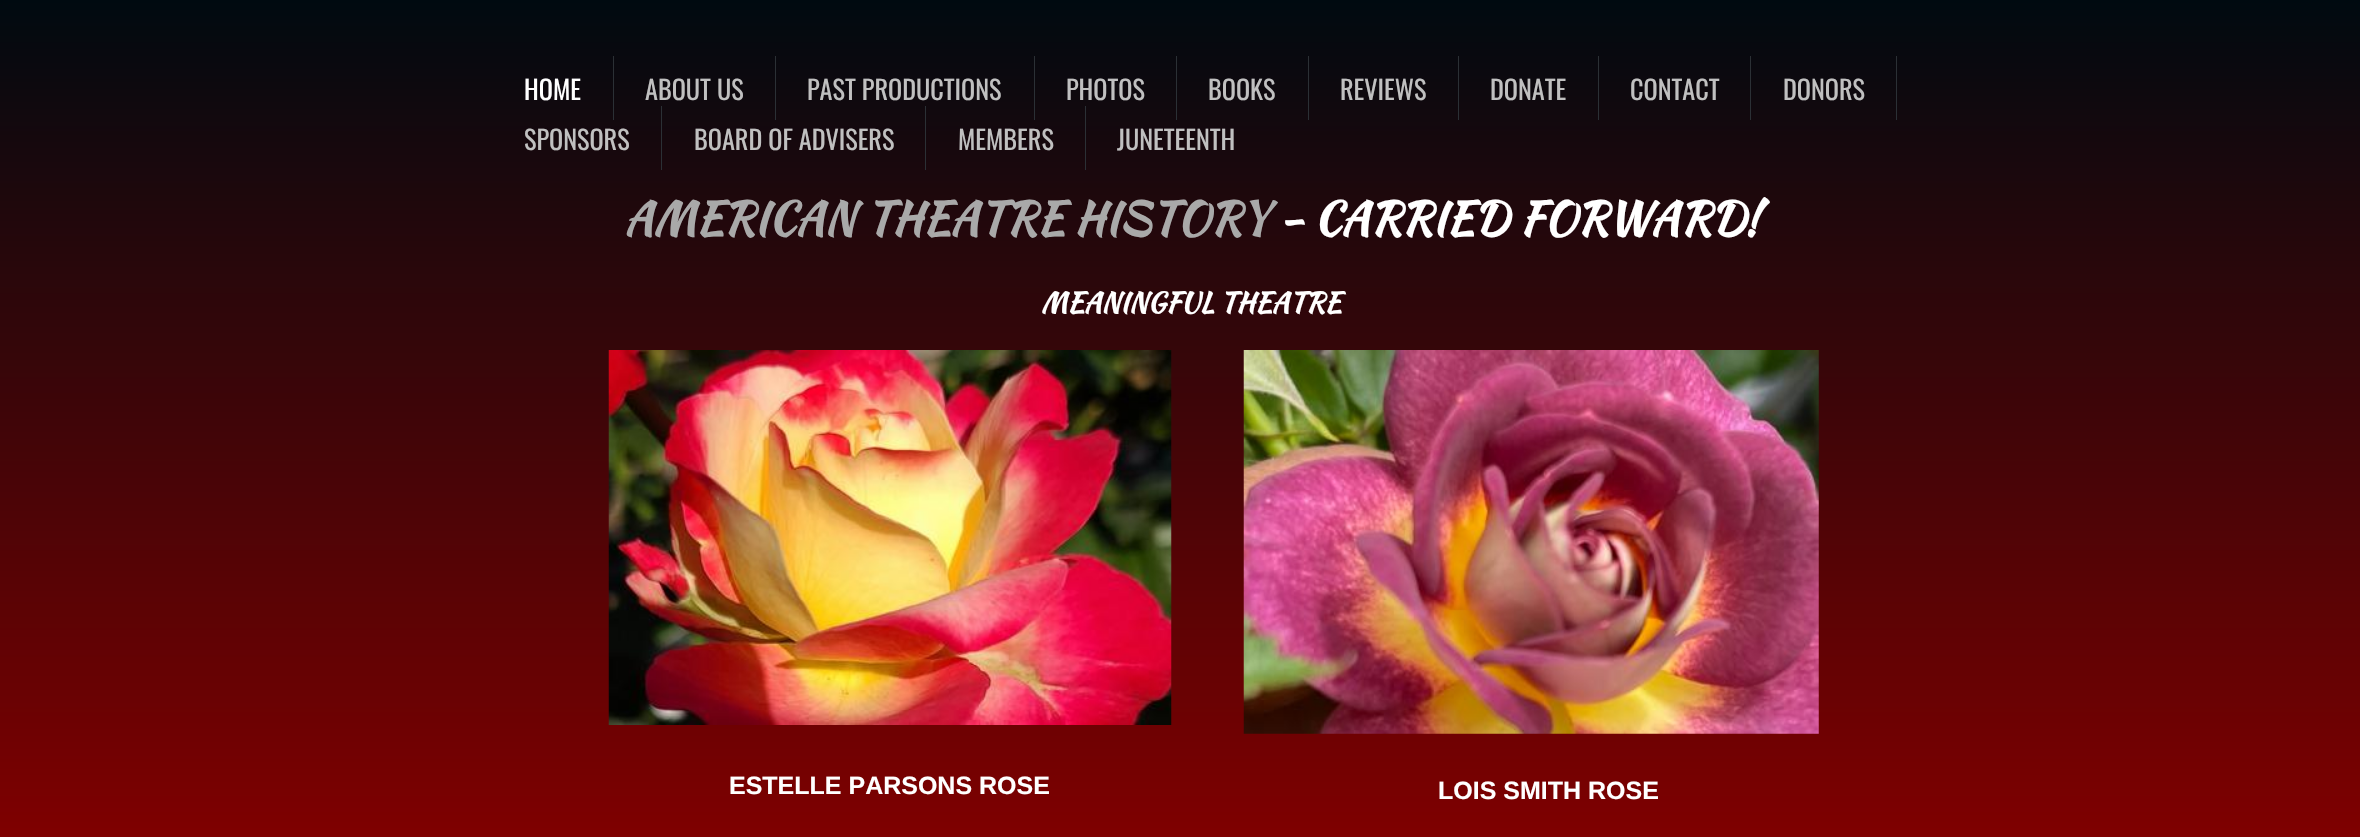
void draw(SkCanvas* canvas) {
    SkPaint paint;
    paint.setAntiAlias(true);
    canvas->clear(0xFFFFFFFF);
    {
        const SkColor colors[] = {0xFF000A10, 0xFF7F0000};
        const float stops[] = {0, 1};
        const SkPoint ends[] = {{1180, 0}, {1180, 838}};
        paint.setShader(SkGradientShader::MakeLinear(ends, colors, stops, 2, SkTileMode::kClamp));
        paint.setAlpha(255);
    }
    canvas->drawRect(SkRect::MakeXYWH(0, 0, 2360, 837), paint);
    SkFont font1(fontMgr->matchFamilyStyle("Oswald", SkFontStyle::Normal()), 26.25f);
    font1.setSubpixel(true);
    paint.setShader(nullptr);
    paint.setColor(0xFFFFFFFF);
    canvas->drawString("HOME", 524, 100, font1, paint);
    paint.setColor(0xFF2B3035);
    canvas->drawRect(SkRect::MakeXYWH(613, 56, 1, 64), paint);
    paint.setColor(0xFFC0C0C0);
    canvas->drawString("ABOUT US", 645, 100, font1, paint);
    paint.setColor(0xFF2B3035);
    canvas->drawRect(SkRect::MakeXYWH(775, 56, 1, 64), paint);
    paint.setColor(0xFFC0C0C0);
    canvas->drawString("PAST PRODUCTIONS", 807, 100, font1, paint);
    paint.setColor(0xFF2B3035);
    canvas->drawRect(SkRect::MakeXYWH(1034, 56, 1, 64), paint);
    paint.setColor(0xFFC0C0C0);
    canvas->drawString("PHOTOS", 1066, 100, font1, paint);
    paint.setColor(0xFF2B3035);
    canvas->drawRect(SkRect::MakeXYWH(1176, 56, 1, 64), paint);
    paint.setColor(0xFFC0C0C0);
    canvas->drawString("BOOKS", 1208, 100, font1, paint);
    paint.setColor(0xFF2B3035);
    canvas->drawRect(SkRect::MakeXYWH(1308, 56, 1, 64), paint);
    paint.setColor(0xFFC0C0C0);
    canvas->drawString("REVIEWS", 1340, 100, font1, paint);
    paint.setColor(0xFF2B3035);
    canvas->drawRect(SkRect::MakeXYWH(1458, 56, 1, 64), paint);
    paint.setColor(0xFFC0C0C0);
    canvas->drawString("DONATE", 1490, 100, font1, paint);
    paint.setColor(0xFF2B3035);
    canvas->drawRect(SkRect::MakeXYWH(1598, 56, 1, 64), paint);
    paint.setColor(0xFFC0C0C0);
    canvas->drawString("CONTACT", 1630, 100, font1, paint);
    paint.setColor(0xFF2B3035);
    canvas->drawRect(SkRect::MakeXYWH(1750, 56, 1, 64), paint);
    paint.setColor(0xFFC0C0C0);
    canvas->drawString("DONORS", 1783, 100, font1, paint);
    paint.setColor(0xFF2B3035);
    canvas->drawRect(SkRect::MakeXYWH(1896, 56, 1, 64), paint);
    paint.setColor(0xFFC0C0C0);
    canvas->drawString("SPONSORS", 524, 150, font1, paint);
    paint.setColor(0xFF2B3035);
    canvas->drawRect(SkRect::MakeXYWH(661, 106, 1, 64), paint);
    paint.setColor(0xFFC0C0C0);
    canvas->drawString("BOARD OF ADVISERS", 694, 150, font1, paint);
    paint.setColor(0xFF2B3035);
    canvas->drawRect(SkRect::MakeXYWH(925, 106, 1, 64), paint);
    paint.setColor(0xFFC0C0C0);
    canvas->drawString("MEMBERS", 958, 150, font1, paint);
    paint.setColor(0xFF2B3035);
    canvas->drawRect(SkRect::MakeXYWH(1085, 106, 1, 64), paint);
    paint.setColor(0xFFC0C0C0);
    canvas->drawString("JUNETEENTH", 1117, 150, font1, paint);
    SkFont font2(fontMgr->matchFamilyStyle("Kaushan Script", SkFontStyle::Bold()), 45);
    font2.setSubpixel(true);
    paint.setColor(0xFFA9A9A9);
    canvas->drawString("AMERICAN THEATRE HISTORY", 624, 234, font2, paint);
    paint.setColor(0xFFFFFFFF);
    canvas->drawString("- CARRIED FORWARD!", 1279, 234, font2, paint);
    SkFont font3(fontMgr->matchFamilyStyle("Kaushan Script", SkFontStyle::Bold()), 27.5f);
    font3.setSubpixel(true);
    canvas->drawString("MEANINGFUL THEATRE", 1041, 312, font3, paint);
    canvas->drawImageRect(SkImages::DeferredFromEncodedData(SkData::MakeFromFileName("img1.png")), SkRect::MakeXYWH(608, 350, 564, 375), SkSamplingOptions());
    canvas->drawImageRect(SkImages::DeferredFromEncodedData(SkData::MakeFromFileName("img2.png")), SkRect::MakeXYWH(1243, 350, 576, 384), SkSamplingOptions());
    SkFont font4(fontMgr->matchFamilyStyle("Liberation Sans", SkFontStyle::Bold()), 25);
    font4.setSubpixel(true);
    canvas->drawString("ESTELLE PARSONS ROSE", 729, 794, font4, paint);
    canvas->drawString("LOIS SMITH ROSE", 1438, 799, font4, paint);
}
